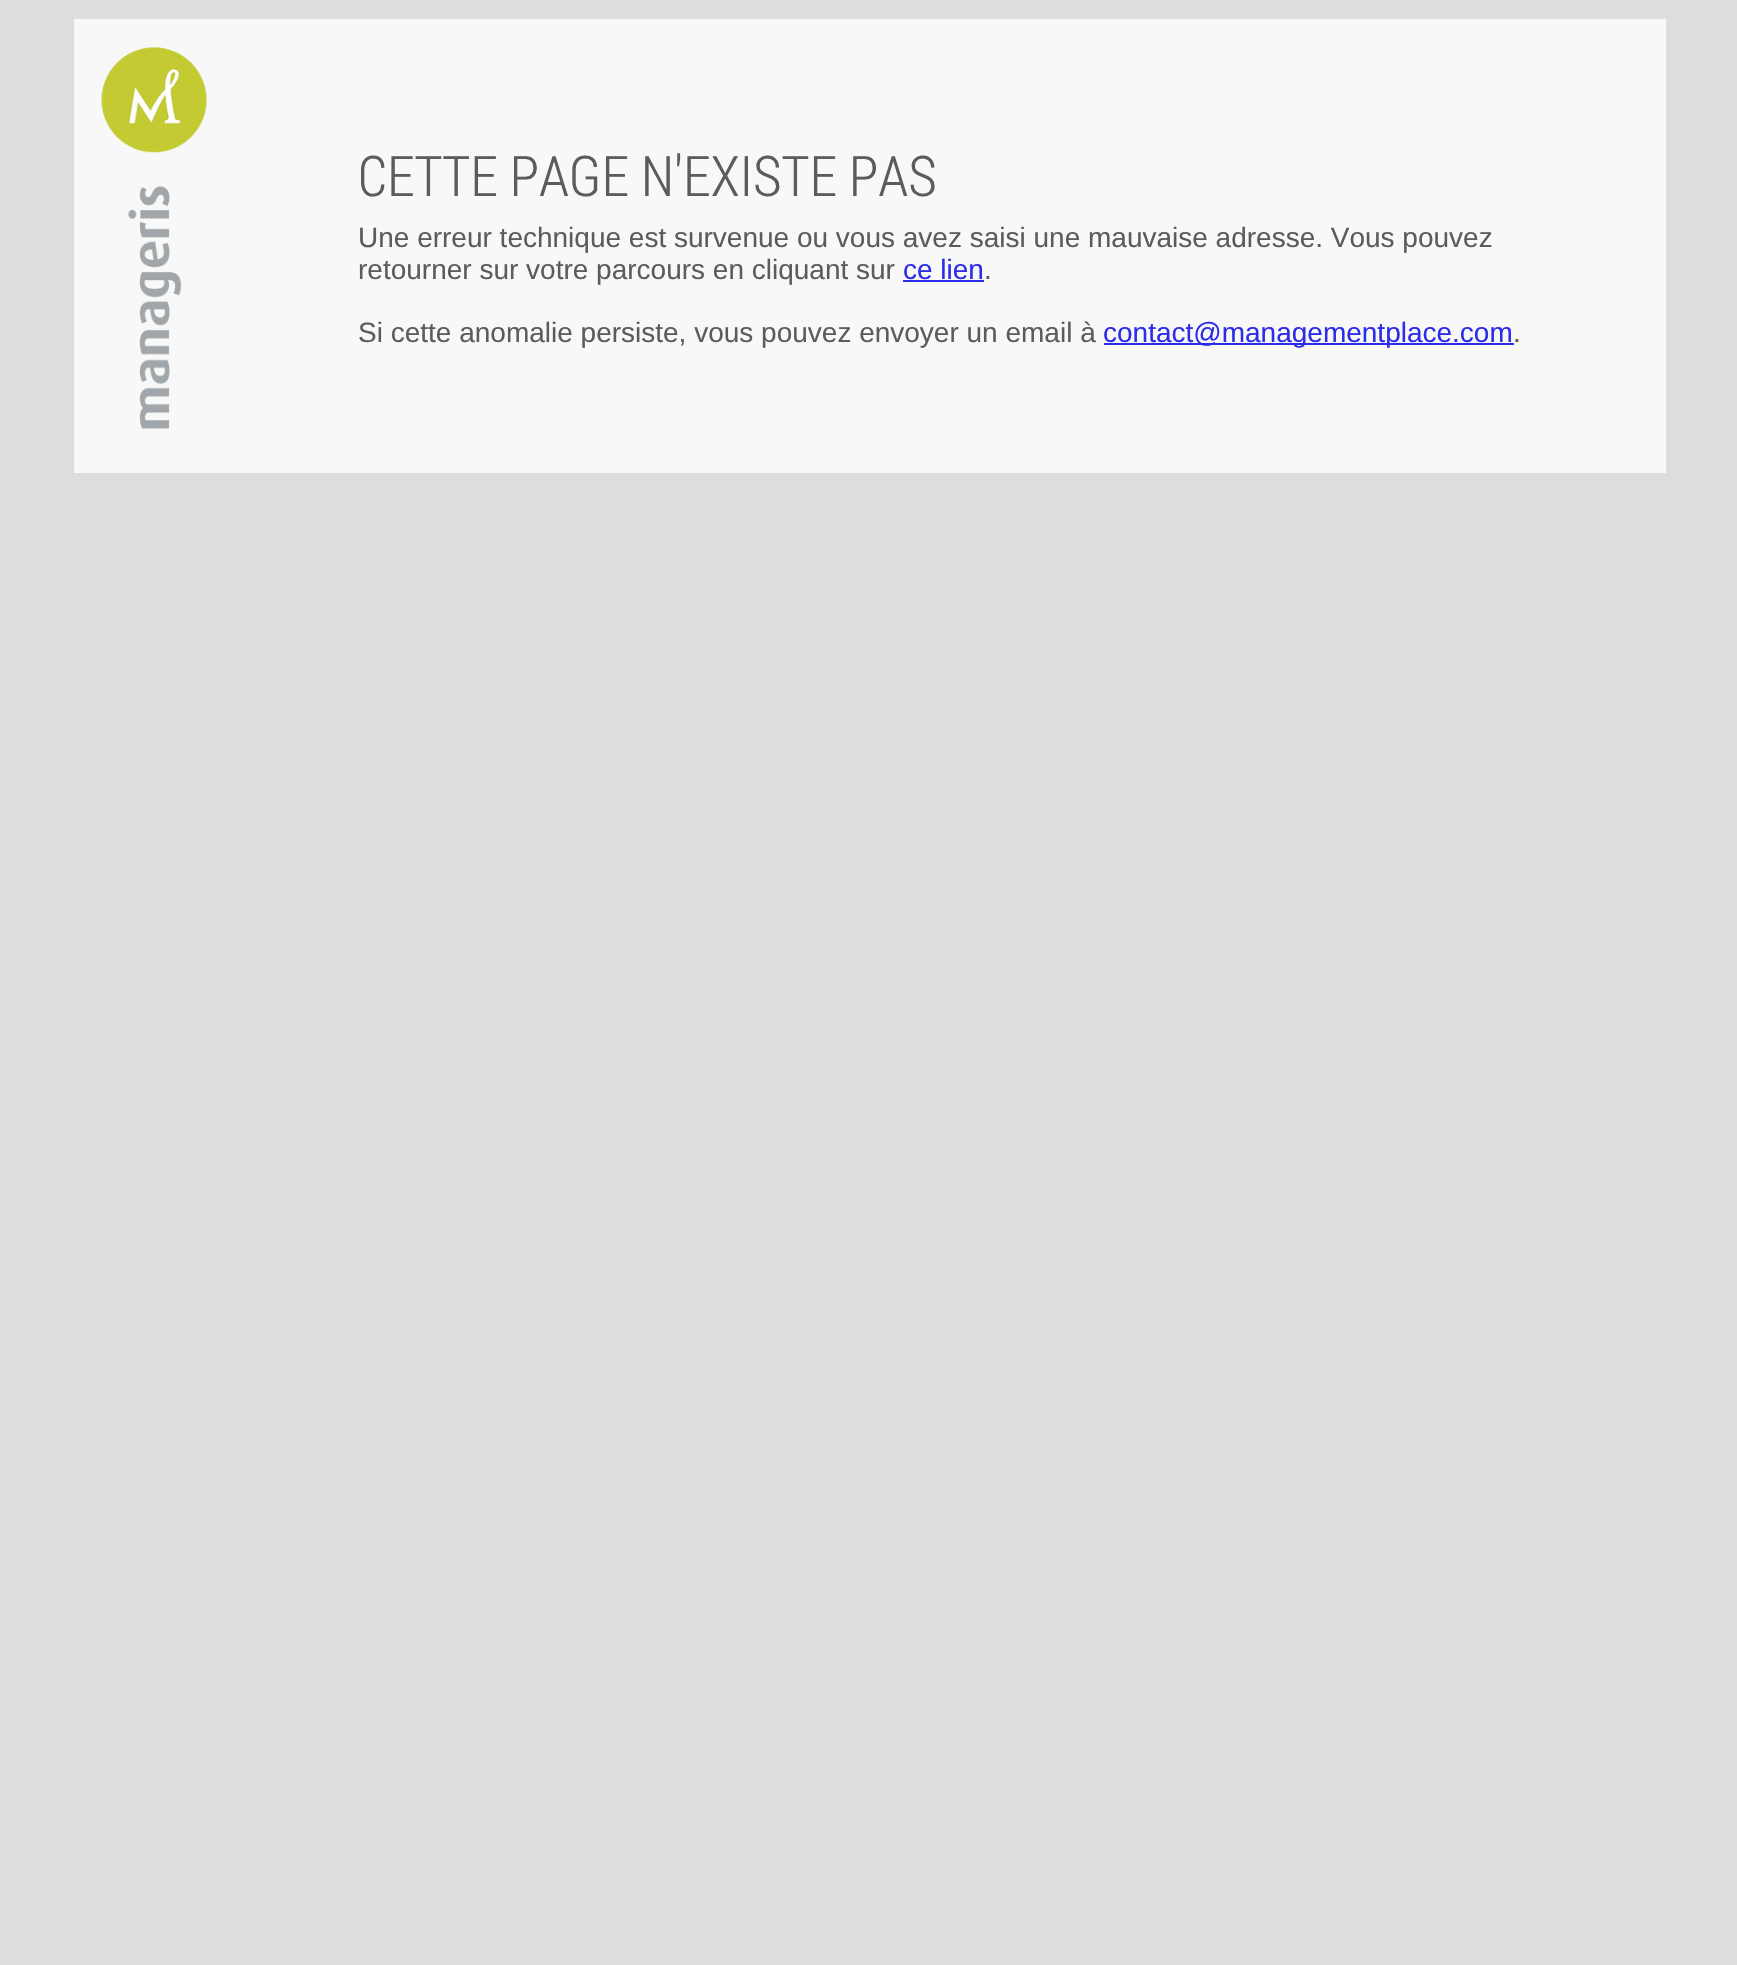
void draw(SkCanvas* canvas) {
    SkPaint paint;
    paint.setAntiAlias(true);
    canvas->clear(0xFFDDDDDD);
    paint.setColor(0xFFF8F8F8);
    canvas->drawRect(SkRect::MakeXYWH(74, 19, 1592, 454), paint);
    canvas->drawImageRect(SkImages::DeferredFromEncodedData(SkData::MakeFromFileName("img1.png")), SkRect::MakeXYWH(101, 47, 106, 382), SkSamplingOptions());
    SkFont font1(fontMgr->matchFamilyStyle("Roboto Condensed", SkFontStyle(300, SkFontStyle::kNormal_Width, SkFontStyle::kUpright_Slant)), 56);
    font1.setSubpixel(true);
    paint.setColor(0xFF5C5C5E);
    canvas->drawString("CETTE PAGE N'EXISTE PAS", 358, 196, font1, paint);
    SkFont font2(fontMgr->matchFamilyStyle("Liberation Sans", SkFontStyle::Normal()), 28);
    font2.setSubpixel(true);
    canvas->drawString("Une erreur technique est survenue ou vous avez saisi une mauvaise adresse. Vous pouvez", 358, 247, font2, paint);
    canvas->drawString("retourner sur votre parcours en cliquant sur", 358, 279, font2, paint);
    paint.setColor(0xFF2C2CEB);
    canvas->drawString("ce lien", 903, 279, font2, paint);
    canvas->drawRect(SkRect::MakeXYWH(903, 280, 81, 2), paint);
    paint.setColor(0xFF5C5C5E);
    canvas->drawString(".", 984, 279, font2, paint);
    canvas->drawString("Si cette anomalie persiste, vous pouvez envoyer un email à", 358, 342, font2, paint);
    paint.setColor(0xFF2C2CEB);
    canvas->drawRect(SkRect::MakeXYWH(1104, 343, 410, 2), paint);
    canvas->drawString("contact@managementplace.com", 1103, 342, font2, paint);
    paint.setColor(0xFF5C5C5E);
    canvas->drawString(".", 1513, 342, font2, paint);
}
